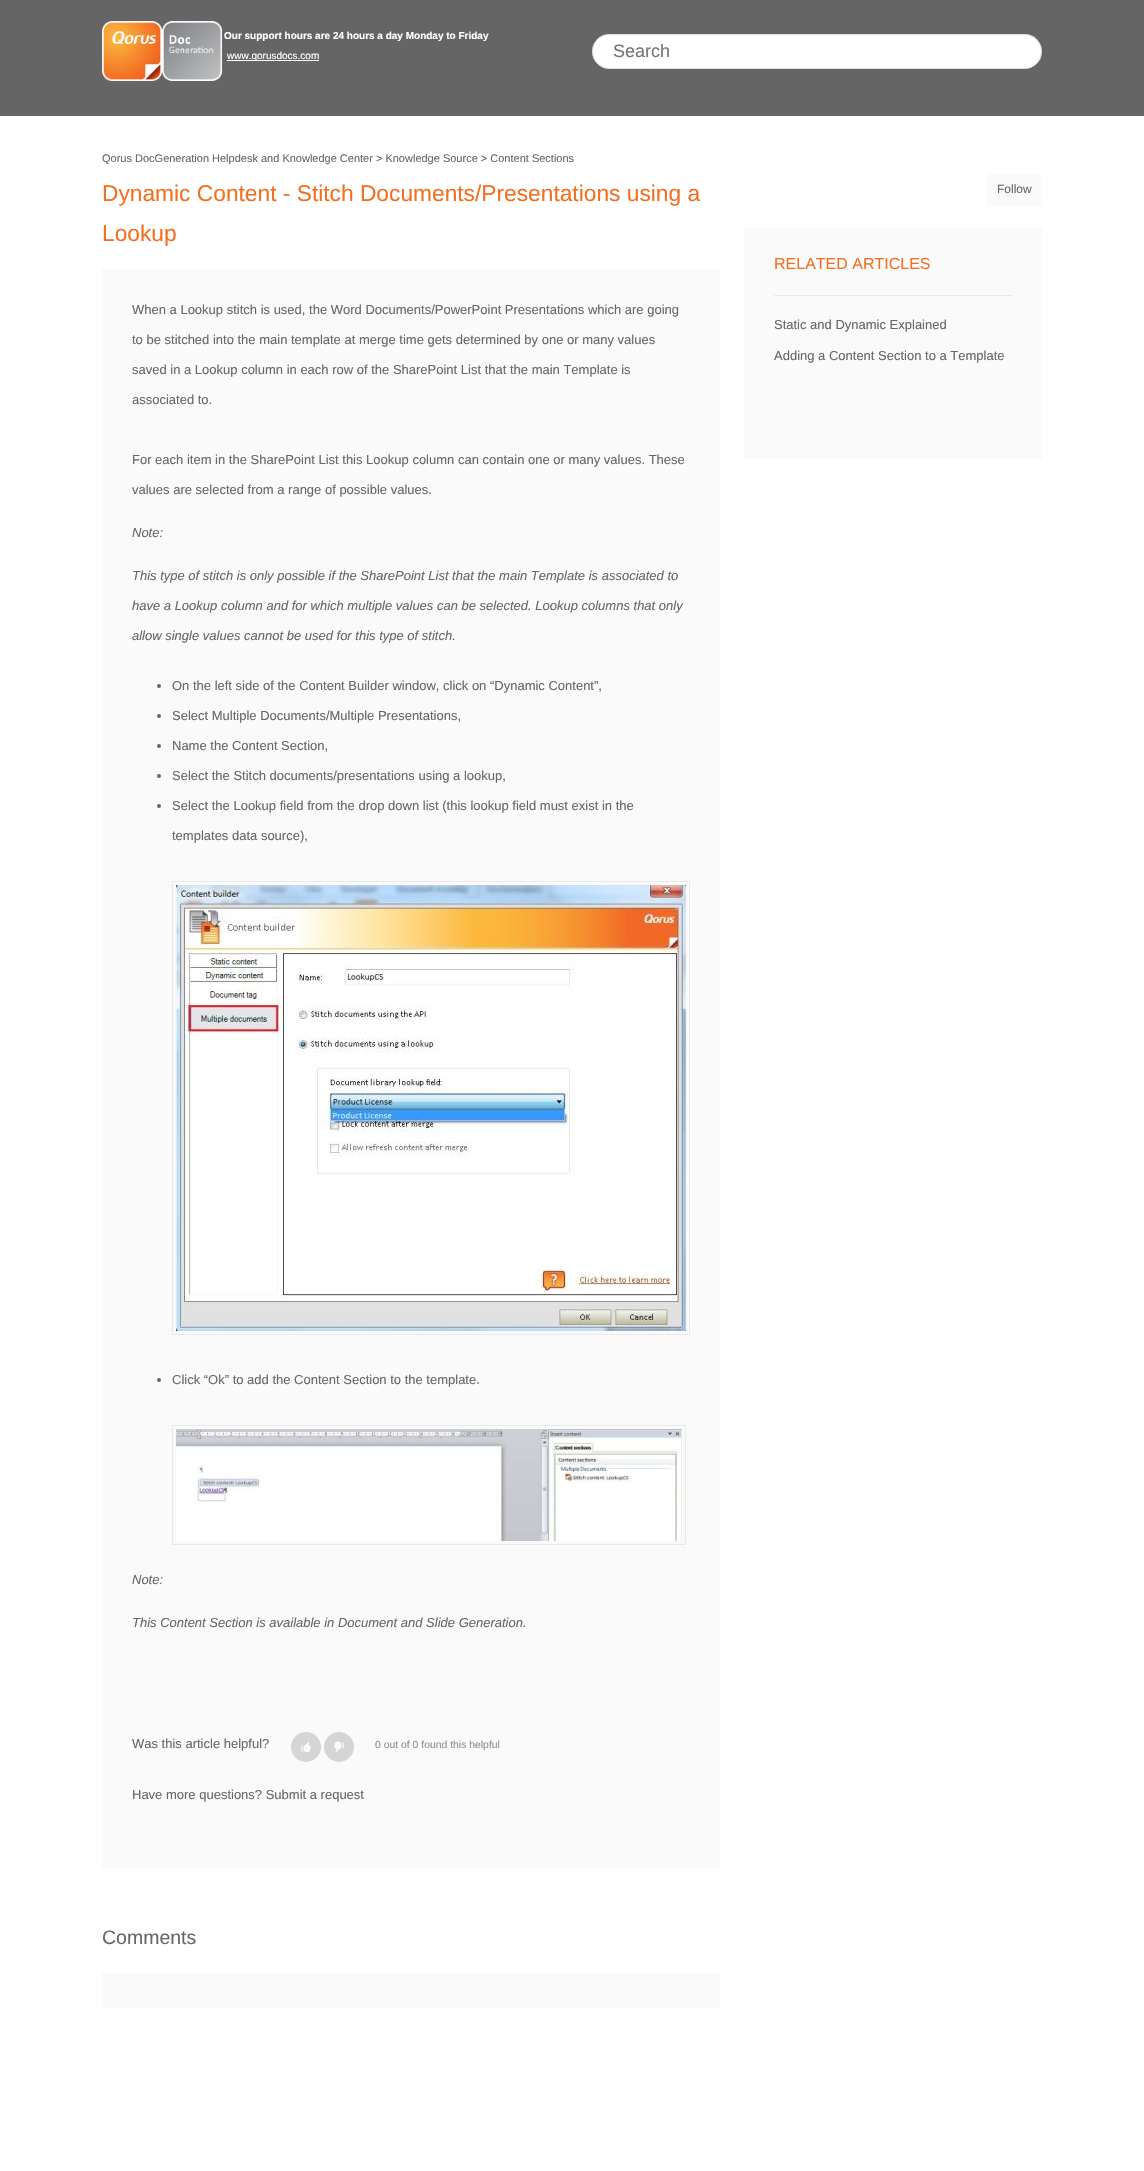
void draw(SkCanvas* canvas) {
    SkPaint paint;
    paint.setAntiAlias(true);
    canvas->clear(0xFFFFFFFF);
    paint.setColor(0xFF666565);
    canvas->drawRect(SkRect::MakeXYWH(0, 0, 1144, 116), paint);
    canvas->drawImageRect(SkImages::DeferredFromEncodedData(SkData::MakeFromFileName("img1.png")), SkRect::MakeXYWH(102, 21, 120, 60), SkSamplingOptions());
    SkFont font1(fontMgr->matchFamilyStyle("Liberation Sans", SkFontStyle::Bold()), 10);
    font1.setSubpixel(true);
    paint.setColor(0xFFFFFFFF);
    canvas->drawString("Our support hours are 24 hours a day Monday to Friday", 224, 39, font1, paint);
    canvas->drawRect(SkRect::MakeXYWH(227, 60, 92, 1), paint);
    SkFont font2(fontMgr->matchFamilyStyle("Liberation Sans", SkFontStyle::Normal()), 10);
    font2.setSubpixel(true);
    canvas->drawString("www.qorusdocs.com", 227, 59, font2, paint);
    canvas->drawRoundRect(SkRect::MakeXYWH(592, 34, 450, 35), 17.5f, 17.5f, paint);
    paint.setStyle(SkPaint::kStroke_Style);
    paint.setStrokeWidth(1);
    paint.setColor(0x21000000);
    canvas->drawRoundRect(SkRect::MakeXYWH(592.5f, 34.5f, 449, 34), 17, 17, paint);
    SkFont font3(fontMgr->matchFamilyStyle("Liberation Sans", SkFontStyle::Normal()), 18);
    font3.setSubpixel(true);
    paint.setStyle(SkPaint::kFill_Style);
    paint.setColor(0xFF757575);
    canvas->drawString("Search", 613, 57, font3, paint);
    SkFont font4(fontMgr->matchFamilyStyle("Liberation Sans", SkFontStyle::Normal()), 11);
    font4.setSubpixel(true);
    paint.setColor(0xFF666666);
    canvas->drawString("Qorus DocGeneration Helpdesk and Knowledge Center > Knowledge Source > Content Sections", 102, 162, font4, paint);
    SkFont font5(fontMgr->matchFamilyStyle("Liberation Sans", SkFontStyle::Normal()), 22.75f);
    font5.setSubpixel(true);
    paint.setColor(0xFFF37021);
    canvas->drawString("Dynamic Content - Stitch Documents/Presentations using a", 102, 201, font5, paint);
    canvas->drawString("Lookup", 102, 241, font5, paint);
    paint.setColor(0xFFFAFAFA);
    canvas->drawRect(SkRect::MakeXYWH(102, 269, 618, 1599), paint);
    SkFont font6(fontMgr->matchFamilyStyle("Liberation Sans", SkFontStyle::Normal()), 13);
    font6.setSubpixel(true);
    paint.setColor(0xFF666666);
    canvas->drawString("When a Lookup stitch is used, the Word Documents/PowerPoint Presentations which are going", 132, 314, font6, paint);
    canvas->drawString("to be stitched into the main template at merge time gets determined by one or many values", 132, 344, font6, paint);
    canvas->drawString("saved in a Lookup column in each row of the SharePoint List that the main Template is", 132, 374, font6, paint);
    canvas->drawString("associated to.", 132, 404, font6, paint);
    canvas->drawString("For each item in the SharePoint List this Lookup column can contain one or many values. These", 132, 464, font6, paint);
    canvas->drawString("values are selected from a range of possible values.", 132, 494, font6, paint);
    SkFont font7(fontMgr->matchFamilyStyle("Liberation Sans", SkFontStyle::Italic()), 13);
    font7.setSubpixel(true);
    canvas->drawString("Note:", 132, 537, font7, paint);
    canvas->drawString("This type of stitch is only possible if the SharePoint List that the main Template is associated to", 132, 580, font7, paint);
    canvas->drawString("have a Lookup column and for which multiple values can be selected. Lookup columns that only", 132, 610, font7, paint);
    canvas->drawString("allow single values cannot be used for this type of stitch.", 132, 640, font7, paint);
    canvas->drawCircle(159, 686, 2, paint);
    canvas->drawString("On the left side of the Content Builder window, click on “Dynamic Content”,", 172, 690, font6, paint);
    canvas->drawCircle(159, 716, 2, paint);
    canvas->drawString("Select Multiple Documents/Multiple Presentations,", 172, 720, font6, paint);
    canvas->drawCircle(159, 746, 2, paint);
    canvas->drawString("Name the Content Section,", 172, 750, font6, paint);
    canvas->drawCircle(159, 776, 2, paint);
    canvas->drawString("Select the Stitch documents/presentations using a lookup,", 172, 780, font6, paint);
    canvas->drawCircle(159, 806, 2, paint);
    canvas->drawString("Select the Lookup field from the drop down list (this lookup field must exist in the", 172, 810, font6, paint);
    canvas->drawString("templates data source),", 172, 840, font6, paint);
    paint.setStyle(SkPaint::kStroke_Style);
    paint.setColor(0xFFE9E9E9);
    canvas->drawRect(SkRect::MakeXYWH(172.5f, 881.5f, 517, 453), paint);
    canvas->drawImageRect(SkImages::DeferredFromEncodedData(SkData::MakeFromFileName("img2.png")), SkRect::MakeXYWH(176, 885, 510, 446), SkSamplingOptions());
    paint.setStyle(SkPaint::kFill_Style);
    paint.setColor(0xFF666666);
    canvas->drawCircle(159, 1380, 2, paint);
    canvas->drawString("Click “Ok” to add the Content Section to the template.", 172, 1384, font6, paint);
    paint.setStyle(SkPaint::kStroke_Style);
    paint.setColor(0xFFE9E9E9);
    canvas->drawRect(SkRect::MakeXYWH(172.5f, 1425.5f, 513, 119), paint);
    canvas->drawImageRect(SkImages::DeferredFromEncodedData(SkData::MakeFromFileName("img3.png")), SkRect::MakeXYWH(176, 1429, 506, 112), SkSamplingOptions());
    paint.setStyle(SkPaint::kFill_Style);
    paint.setColor(0xFF666666);
    canvas->drawString("Note:", 132, 1584, font7, paint);
    canvas->drawString("This Content Section is available in Document and Slide Generation.", 132, 1627, font7, paint);
    canvas->drawString("Was this article helpful?", 132, 1748, font6, paint);
    paint.setColor(0xFFD5D5D5);
    canvas->drawCircle(306, 1747, 15, paint);
    canvas->drawImageRect(SkImages::DeferredFromEncodedData(SkData::MakeFromFileName("img4.png")), SkRect::MakeXYWH(301, 1741, 10, 12), SkSamplingOptions());
    canvas->drawCircle(339, 1747, 15, paint);
    canvas->drawImageRect(SkImages::DeferredFromEncodedData(SkData::MakeFromFileName("img5.png")), SkRect::MakeXYWH(334, 1741, 10, 11), SkSamplingOptions());
    SkFont font8(fontMgr->matchFamilyStyle("Liberation Sans", SkFontStyle::Normal()), 10.4f);
    font8.setSubpixel(true);
    paint.setColor(0xFF8E8E8E);
    canvas->drawString("0 out of 0 found this helpful", 375, 1748, font8, paint);
    paint.setColor(0xFF666666);
    canvas->drawString("Have more questions? Submit a request", 132, 1799, font6, paint);
    SkFont font9(fontMgr->matchFamilyStyle("Liberation Sans", SkFontStyle::Normal()), 19.5f);
    font9.setSubpixel(true);
    canvas->drawString("Comments", 102, 1944, font9, paint);
    paint.setColor(0xFFFAFAFA);
    canvas->drawRect(SkRect::MakeXYWH(102, 1973, 618, 35), paint);
    canvas->drawRoundRect(SkRect::MakeXYWH(987, 174, 55, 33), 3, 3, paint);
    SkFont font10(fontMgr->matchFamilyStyle("Liberation Sans", SkFontStyle::Normal()), 12);
    font10.setSubpixel(true);
    paint.setColor(0xFF666666);
    canvas->drawString("Follow", 997, 193, font10, paint);
    paint.setColor(0xFFFAFAFA);
    canvas->drawRect(SkRect::MakeXYWH(744, 228, 298, 231), paint);
    paint.setColor(0xFFE9E9E9);
    canvas->drawRect(SkRect::MakeXYWH(774, 295, 238, 1), paint);
    SkFont font11(fontMgr->matchFamilyStyle("Liberation Sans", SkFontStyle::Normal()), 16);
    font11.setSubpixel(true);
    paint.setColor(0xFFF37021);
    canvas->drawString("RELATED ARTICLES", 774, 269, font11, paint);
    paint.setColor(0xFF666666);
    canvas->drawString("Static and Dynamic Explained", 774, 329, font6, paint);
    canvas->drawString("Adding a Content Section to a Template", 774, 360, font6, paint);
}
